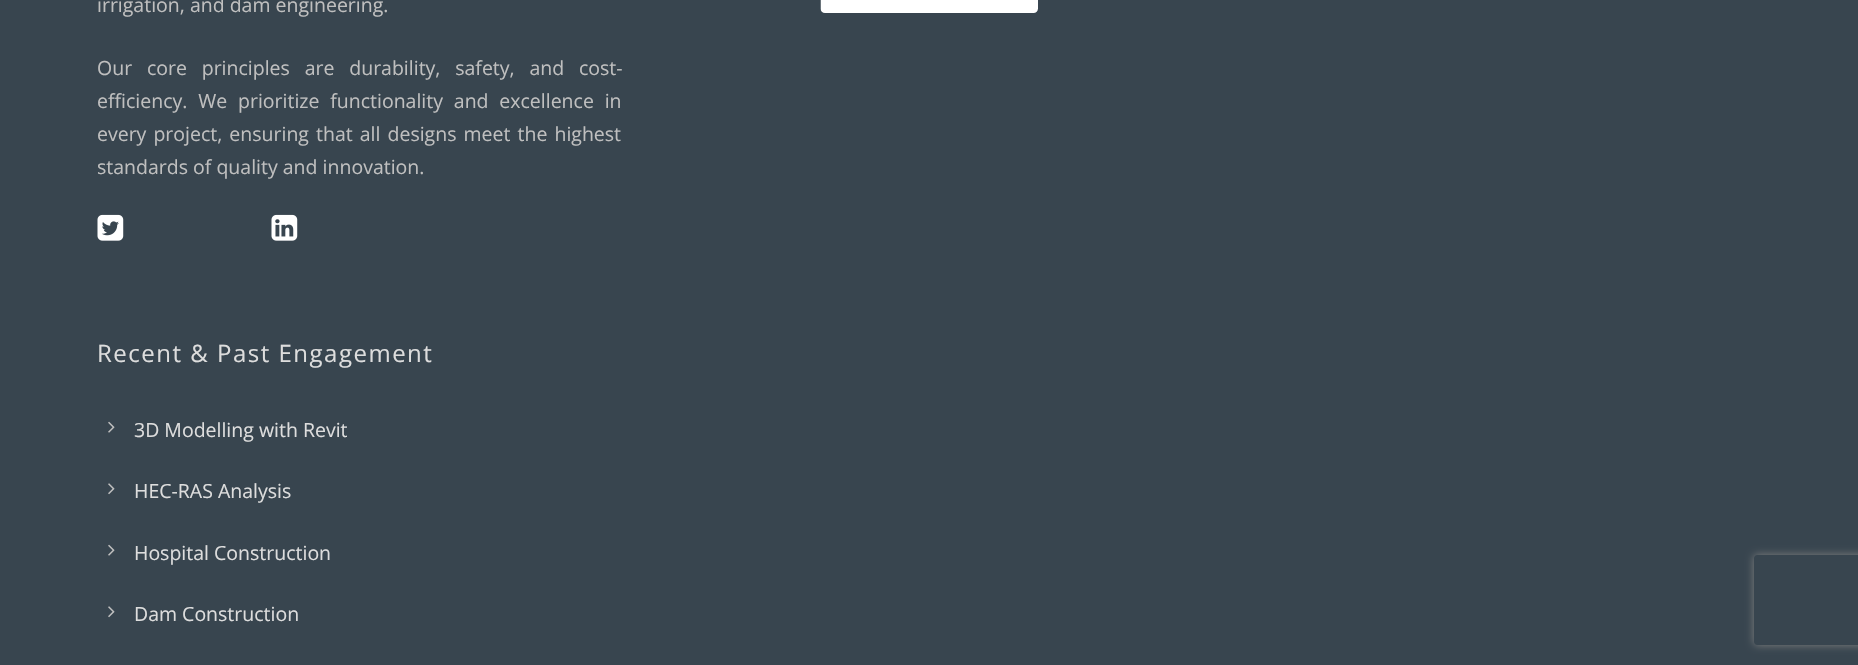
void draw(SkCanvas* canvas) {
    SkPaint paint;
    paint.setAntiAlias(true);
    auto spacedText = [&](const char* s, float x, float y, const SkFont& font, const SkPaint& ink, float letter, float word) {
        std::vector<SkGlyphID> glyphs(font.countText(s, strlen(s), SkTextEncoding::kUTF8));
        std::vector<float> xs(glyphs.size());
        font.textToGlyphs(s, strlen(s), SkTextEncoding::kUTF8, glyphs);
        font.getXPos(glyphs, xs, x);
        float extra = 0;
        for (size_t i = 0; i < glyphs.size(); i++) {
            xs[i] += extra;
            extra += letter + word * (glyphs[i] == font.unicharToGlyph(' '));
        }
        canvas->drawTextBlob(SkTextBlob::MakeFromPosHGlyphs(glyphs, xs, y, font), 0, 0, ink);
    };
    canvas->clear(0xFF38454F);
    SkFont font1(fontMgr->matchFamilyStyle("Open Sans", SkFontStyle::Normal()), 19.5f);
    font1.setSubpixel(true);
    paint.setColor(0xFFBFBFBF);
    canvas->drawString("irrigation, and dam engineering.", 97, 12, font1, paint);
    spacedText("Our core principles are durability, safety, and cost-", 97, 75, font1, paint, 0, 9.75f);
    spacedText("efficiency. We prioritize functionality and excellence in", 97, 108, font1, paint, 0, 5.75f);
    spacedText("every project, ensuring that all designs meet the highest", 97, 141, font1, paint, 0, 2);
    canvas->drawString("standards of quality and innovation.", 97, 174, font1, paint);
    canvas->drawImageRect(SkImages::DeferredFromEncodedData(SkData::MakeFromFileName("img1.png")), SkRect::MakeXYWH(97, 214, 27, 27), SkSamplingOptions());
    canvas->drawImageRect(SkImages::DeferredFromEncodedData(SkData::MakeFromFileName("img2.png")), SkRect::MakeXYWH(271, 214, 27, 27), SkSamplingOptions());
    SkFont font2(fontMgr->matchFamilyStyle("Open Sans", SkFontStyle::Normal()), 24);
    font2.setSubpixel(true);
    paint.setColor(0xFFDDDDDD);
    spacedText("Recent & Past Engagement", 97, 362, font2, paint, 1.5f, 0);
    canvas->drawImageRect(SkImages::DeferredFromEncodedData(SkData::MakeFromFileName("img3.png")), SkRect::MakeXYWH(108, 421, 7, 12), SkSamplingOptions());
    canvas->drawString("3D Modelling with Revit", 134, 437, font1, paint);
    canvas->drawImageRect(SkImages::DeferredFromEncodedData(SkData::MakeFromFileName("img4.png")), SkRect::MakeXYWH(108, 483, 7, 12), SkSamplingOptions());
    canvas->drawString("HEC-RAS Analysis", 134, 498, font1, paint);
    canvas->drawImageRect(SkImages::DeferredFromEncodedData(SkData::MakeFromFileName("img3.png")), SkRect::MakeXYWH(108, 544, 7, 12), SkSamplingOptions());
    canvas->drawString("Hospital Construction", 134, 560, font1, paint);
    canvas->drawImageRect(SkImages::DeferredFromEncodedData(SkData::MakeFromFileName("img4.png")), SkRect::MakeXYWH(108, 606, 7, 12), SkSamplingOptions());
    canvas->drawString("Dam Construction", 134, 621, font1, paint);
    canvas->drawImageRect(SkImages::DeferredFromEncodedData(SkData::MakeFromFileName("img5.png")), SkRect::MakeXYWH(820, 0, 218, 13), SkSamplingOptions());
    canvas->save();
    canvas->clipPath(SkPathBuilder(SkPathFillType::kEvenOdd).moveTo(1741, 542).lineTo(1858, 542).lineTo(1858, 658).lineTo(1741, 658).close().moveTo(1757, 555).lineTo(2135, 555).cubicTo(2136.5f, 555, 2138, 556.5f, 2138, 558).lineTo(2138, 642).cubicTo(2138, 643.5f, 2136.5f, 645, 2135, 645).lineTo(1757, 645).cubicTo(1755.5f, 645, 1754, 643.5f, 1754, 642).lineTo(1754, 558).cubicTo(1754, 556.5f, 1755.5f, 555, 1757, 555).close().detach(), true);
    paint.setColor(0xFF808080);
    paint.setMaskFilter(SkMaskFilter::MakeBlur(kNormal_SkBlurStyle, 4));
    canvas->drawRoundRect(SkRect::MakeXYWH(1754, 555, 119, 90), 3, 3, paint);
    paint.setMaskFilter(nullptr);
    canvas->restore();
}
